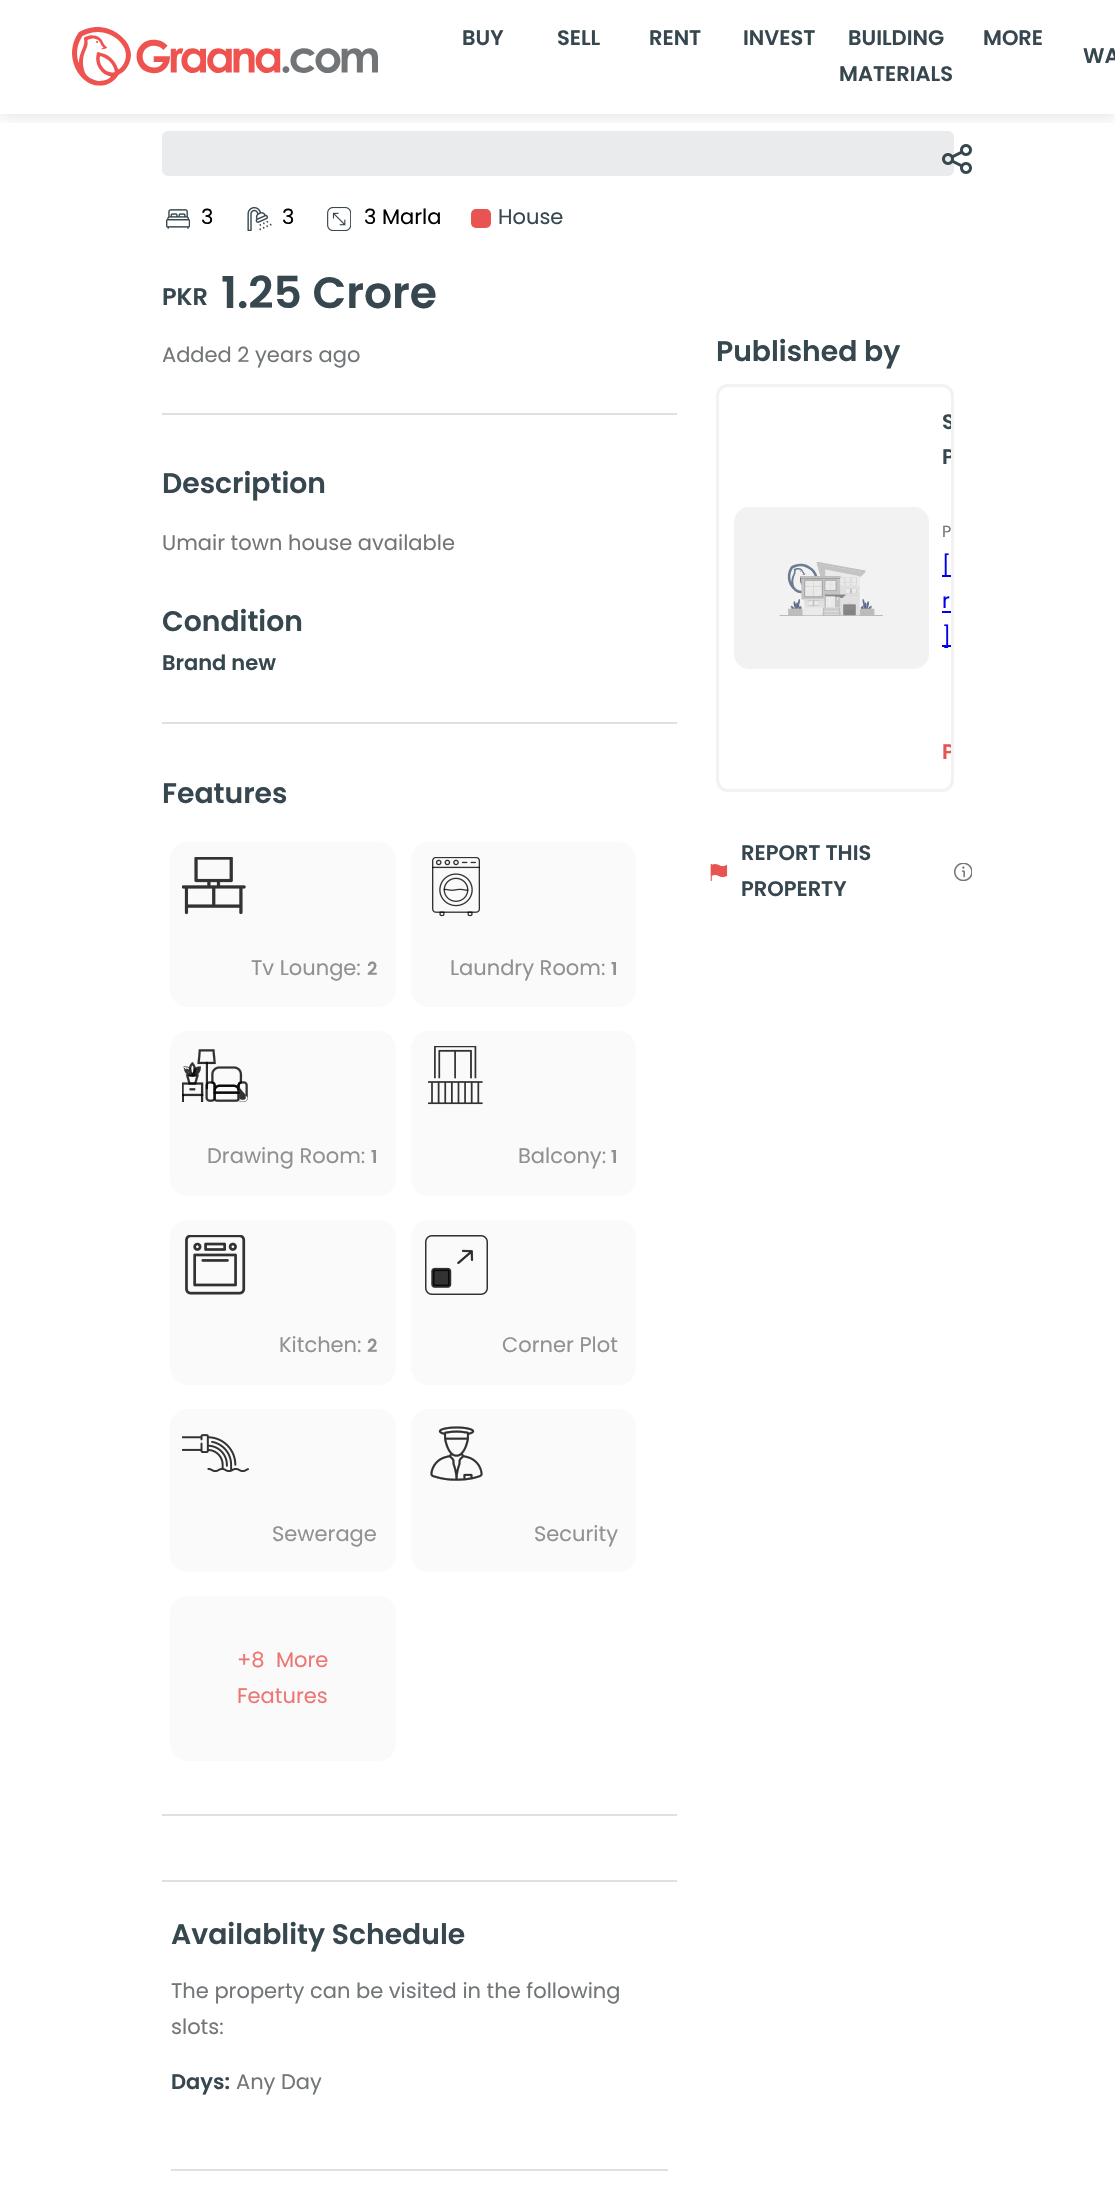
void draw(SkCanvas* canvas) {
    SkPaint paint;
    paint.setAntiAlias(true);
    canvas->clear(0xFFFFFFFF);
    paint.setColor(0xFFE9EBEC);
    canvas->drawRoundRect(SkRect::MakeXYWH(162, 131, 792, 45), 6, 6, paint);
    canvas->save();
    canvas->clipRect(SkRect::MakeXYWH(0, 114, 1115, 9));
    paint.setColor(0x1A000000);
    paint.setMaskFilter(SkMaskFilter::MakeBlur(kNormal_SkBlurStyle, 7.5f));
    canvas->drawRect(SkRect::MakeXYWH(0, 3, 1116, 114), paint);
    paint.setMaskFilter(nullptr);
    canvas->restore();
    canvas->drawImageRect(SkImages::DeferredFromEncodedData(SkData::MakeFromFileName("img1.png")), SkRect::MakeXYWH(72, 27, 306, 59), SkSamplingOptions());
    SkFont font1(fontMgr->matchFamilyStyle("Poppins", SkFontStyle(600, SkFontStyle::kNormal_Width, SkFontStyle::kUpright_Slant)), 21);
    font1.setSubpixel(true);
    paint.setColor(0xFF37474F);
    canvas->drawString("BUY", 462, 45, font1, paint);
    canvas->drawString("SELL", 557, 45, font1, paint);
    canvas->drawString("RENT", 649, 45, font1, paint);
    canvas->drawString("INVEST", 743, 45, font1, paint);
    canvas->drawString("BUILDING", 848, 45, font1, paint);
    canvas->drawString("MATERIALS", 839, 81, font1, paint);
    canvas->drawString("MORE", 983, 45, font1, paint);
    canvas->drawString("WA", 1083, 63, font1, paint);
    canvas->drawImageRect(SkImages::DeferredFromEncodedData(SkData::MakeFromFileName("img2.png")), SkRect::MakeXYWH(942, 144, 30, 30), SkSamplingOptions());
    canvas->drawImageRect(SkImages::DeferredFromEncodedData(SkData::MakeFromFileName("img3.png")), SkRect::MakeXYWH(166, 209, 24, 20), SkSamplingOptions());
    SkFont font2(fontMgr->matchFamilyStyle("Poppins", SkFontStyle::Normal()), 21);
    font2.setSubpixel(true);
    paint.setColor(0xFF000000);
    canvas->drawString("3", 201, 224, font2, paint);
    canvas->drawImageRect(SkImages::DeferredFromEncodedData(SkData::MakeFromFileName("img4.png")), SkRect::MakeXYWH(247, 207, 25, 24), SkSamplingOptions());
    canvas->drawString("3", 282, 224, font2, paint);
    canvas->drawImageRect(SkImages::DeferredFromEncodedData(SkData::MakeFromFileName("img5.png")), SkRect::MakeXYWH(327, 207, 24, 24), SkSamplingOptions());
    canvas->drawString("3 Marla", 364, 224, font2, paint);
    paint.setColor(0xFFE85451);
    canvas->drawRoundRect(SkRect::MakeXYWH(471, 209, 20, 19), 5, 5, paint);
    paint.setColor(0xFF37474F);
    canvas->drawString("House", 498, 224, font2, paint);
    SkFont font3(fontMgr->matchFamilyStyle("Poppins", SkFontStyle(600, SkFontStyle::kNormal_Width, SkFontStyle::kUpright_Slant)), 24);
    font3.setSubpixel(true);
    canvas->drawString("PKR", 162, 305, font3, paint);
    SkFont font4(fontMgr->matchFamilyStyle("Poppins", SkFontStyle(600, SkFontStyle::kNormal_Width, SkFontStyle::kUpright_Slant)), 44);
    font4.setSubpixel(true);
    canvas->drawString("1.25 Crore", 221, 308, font4, paint);
    paint.setColor(0xFF737678);
    canvas->drawString("Added 2 years ago", 162, 362, font2, paint);
    paint.setColor(0xFFE0E0E0);
    canvas->drawRect(SkRect::MakeXYWH(162, 413, 515, 2), paint);
    SkFont font5(fontMgr->matchFamilyStyle("Poppins", SkFontStyle(600, SkFontStyle::kNormal_Width, SkFontStyle::kUpright_Slant)), 28.25f);
    font5.setSubpixel(true);
    paint.setColor(0xFF37474F);
    canvas->drawString("Description", 162, 493, font5, paint);
    paint.setColor(0xFF737678);
    canvas->drawString("Umair town house available", 162, 550, font2, paint);
    paint.setColor(0xFF37474F);
    canvas->drawString("Condition", 162, 631, font5, paint);
    canvas->drawString("Brand new", 162, 670, font1, paint);
    paint.setColor(0xFFE0E0E0);
    canvas->drawRect(SkRect::MakeXYWH(162, 722, 515, 2), paint);
    paint.setColor(0xFF37474F);
    canvas->drawString("Features", 162, 803, font5, paint);
    paint.setColor(0xFFFAFAFA);
    canvas->drawRoundRect(SkRect::MakeXYWH(170, 842, 226, 165), 18, 18, paint);
    canvas->drawImageRect(SkImages::DeferredFromEncodedData(SkData::MakeFromFileName("img6.png")), SkRect::MakeXYWH(182, 857, 64, 58), SkSamplingOptions());
    paint.setColor(0xFF8F9193);
    canvas->drawString("Tv Lounge:", 251, 975, font2, paint);
    SkFont font6(fontMgr->matchFamilyStyle("Poppins", SkFontStyle(600, SkFontStyle::kNormal_Width, SkFontStyle::kUpright_Slant)), 18);
    font6.setSubpixel(true);
    canvas->drawString("2", 367, 975, font6, paint);
    paint.setColor(0xFFFAFAFA);
    canvas->drawRoundRect(SkRect::MakeXYWH(411, 842, 225, 165), 18, 18, paint);
    canvas->drawImageRect(SkImages::DeferredFromEncodedData(SkData::MakeFromFileName("img7.png")), SkRect::MakeXYWH(432, 857, 48, 60), SkSamplingOptions());
    paint.setColor(0xFF8F9193);
    canvas->drawString("Laundry Room:", 450, 975, font2, paint);
    canvas->drawString("1", 611, 975, font6, paint);
    paint.setColor(0xFFFAFAFA);
    canvas->drawRoundRect(SkRect::MakeXYWH(170, 1031, 226, 165), 18, 18, paint);
    canvas->drawImageRect(SkImages::DeferredFromEncodedData(SkData::MakeFromFileName("img8.png")), SkRect::MakeXYWH(182, 1049, 66, 53), SkSamplingOptions());
    paint.setColor(0xFF8F9193);
    canvas->drawString("Drawing Room:", 207, 1163, font2, paint);
    canvas->drawString("1", 371, 1163, font6, paint);
    paint.setColor(0xFFFAFAFA);
    canvas->drawRoundRect(SkRect::MakeXYWH(411, 1031, 225, 165), 18, 18, paint);
    canvas->drawImageRect(SkImages::DeferredFromEncodedData(SkData::MakeFromFileName("img9.png")), SkRect::MakeXYWH(428, 1046, 55, 59), SkSamplingOptions());
    paint.setColor(0xFF8F9193);
    canvas->drawString("Balcony:", 518, 1163, font2, paint);
    canvas->drawString("1", 611, 1163, font6, paint);
    paint.setColor(0xFFFAFAFA);
    canvas->drawRoundRect(SkRect::MakeXYWH(170, 1220, 226, 165), 18, 18, paint);
    canvas->drawImageRect(SkImages::DeferredFromEncodedData(SkData::MakeFromFileName("img10.png")), SkRect::MakeXYWH(185, 1235, 61, 60), SkSamplingOptions());
    paint.setColor(0xFF8F9193);
    canvas->drawString("Kitchen:", 279, 1352, font2, paint);
    canvas->drawString("2", 367, 1352, font6, paint);
    paint.setColor(0xFFFAFAFA);
    canvas->drawRoundRect(SkRect::MakeXYWH(411, 1220, 225, 165), 18, 18, paint);
    canvas->drawImageRect(SkImages::DeferredFromEncodedData(SkData::MakeFromFileName("img11.png")), SkRect::MakeXYWH(425, 1235, 63, 60), SkSamplingOptions());
    paint.setColor(0xFF8F9193);
    canvas->drawString("Corner Plot", 502, 1352, font2, paint);
    paint.setColor(0xFFFAFAFA);
    canvas->drawRoundRect(SkRect::MakeXYWH(170, 1409, 226, 163), 18, 18, paint);
    canvas->drawImageRect(SkImages::DeferredFromEncodedData(SkData::MakeFromFileName("img12.png")), SkRect::MakeXYWH(182, 1434, 67, 39), SkSamplingOptions());
    paint.setColor(0xFF8F9193);
    canvas->drawString("Sewerage", 272, 1541, font2, paint);
    paint.setColor(0xFFFAFAFA);
    canvas->drawRoundRect(SkRect::MakeXYWH(411, 1409, 225, 163), 18, 18, paint);
    canvas->drawImageRect(SkImages::DeferredFromEncodedData(SkData::MakeFromFileName("img13.png")), SkRect::MakeXYWH(430, 1426, 53, 55), SkSamplingOptions());
    paint.setColor(0xFF8F9193);
    canvas->drawString("Security", 534, 1541, font2, paint);
    paint.setColor(0xFFFAFAFA);
    canvas->drawRoundRect(SkRect::MakeXYWH(170, 1596, 226, 165), 18, 18, paint);
    paint.setColor(0xFFED7674);
    canvas->drawString("+8", 237, 1667, font2, paint);
    canvas->drawString("More", 276, 1667, font2, paint);
    canvas->drawString("Features", 237, 1703, font2, paint);
    paint.setColor(0xFFE0E0E0);
    canvas->drawRect(SkRect::MakeXYWH(162, 1814, 515, 2), paint);
    canvas->drawRect(SkRect::MakeXYWH(162, 1880, 515, 2), paint);
    paint.setColor(0xFF37474F);
    canvas->drawString("Availablity Schedule", 171, 1944, font5, paint);
    paint.setColor(0xFF737678);
    canvas->drawString("The property can be visited in the following", 171, 1998, font2, paint);
    canvas->drawString("slots:", 171, 2034, font2, paint);
    paint.setColor(0xFF37474F);
    canvas->drawString("Days:", 171, 2089, font1, paint);
    paint.setColor(0xFF737678);
    canvas->drawString("Any Day", 236, 2089, font2, paint);
    paint.setColor(0xFFE0E0E0);
    canvas->drawRect(SkRect::MakeXYWH(171, 2169, 497, 2), paint);
    paint.setColor(0xFF37474F);
    canvas->drawString("Published by", 716, 361, font5, paint);
    paint.setStyle(SkPaint::kStroke_Style);
    paint.setStrokeWidth(3);
    paint.setColor(0xFFF2F2F2);
    canvas->drawRoundRect(SkRect::MakeXYWH(717.5f, 385.5f, 235, 405), 10.5f, 10.5f, paint);
    paint.setStyle(SkPaint::kFill_Style);
    canvas->drawRoundRect(SkRect::MakeXYWH(734, 507, 195, 162), 15, 15, paint);
    canvas->drawImageRect(SkImages::DeferredFromEncodedData(SkData::MakeFromFileName("img14.png")), SkRect::MakeXYWH(779, 562, 104, 54), SkSamplingOptions());
    canvas->save();
    canvas->clipPath(SkPathBuilder().moveTo(728, 387).lineTo(942, 387).cubicTo(947, 387, 951, 391, 951, 396).lineTo(951, 780).cubicTo(951, 785, 947, 789, 942, 789).lineTo(728, 789).cubicTo(723, 789, 719, 785, 719, 780).lineTo(719, 396).cubicTo(719, 391, 723, 387, 728, 387).close().detach(), true);
    paint.setColor(0xFF37474F);
    canvas->drawString("S", 942, 429, font1, paint);
    canvas->drawString("P", 942, 464, font1, paint);
    canvas->restore();
    SkFont font7(fontMgr->matchFamilyStyle("Poppins", SkFontStyle::Normal()), 16);
    font7.setSubpixel(true);
    paint.setColor(0xFF737678);
    canvas->drawString("P", 942, 537, font7, paint);
    paint.setColor(0xFF0000EE);
    canvas->drawRect(SkRect::MakeXYWH(942, 575, 9, 2), paint);
    canvas->drawString("[", 942, 573, font2, paint);
    canvas->drawString("r", 942, 608, font2, paint);
    canvas->drawRect(SkRect::MakeXYWH(942, 611, 9, 2), paint);
    canvas->drawRect(SkRect::MakeXYWH(942, 645, 9, 2), paint);
    canvas->drawString("]", 942, 644, font2, paint);
    canvas->save();
    canvas->clipPath(SkPathBuilder().moveTo(728, 387).lineTo(942, 387).cubicTo(947, 387, 951, 391, 951, 396).lineTo(951, 780).cubicTo(951, 785, 947, 789, 942, 789).lineTo(728, 789).cubicTo(723, 789, 719, 785, 719, 780).lineTo(719, 396).cubicTo(719, 391, 723, 387, 728, 387).close().detach(), true);
    paint.setColor(0xFFE85451);
    canvas->drawString("P", 942, 759, font1, paint);
    canvas->restore();
    canvas->drawImageRect(SkImages::DeferredFromEncodedData(SkData::MakeFromFileName("img15.png")), SkRect::MakeXYWH(710, 864, 18, 17), SkSamplingOptions());
    paint.setColor(0xFF37474F);
    canvas->drawString("REPORT THIS", 741, 860, font1, paint);
    canvas->drawString("PROPERTY", 741, 896, font1, paint);
    canvas->drawImageRect(SkImages::DeferredFromEncodedData(SkData::MakeFromFileName("img16.png")), SkRect::MakeXYWH(954, 863, 18, 18), SkSamplingOptions());
}
